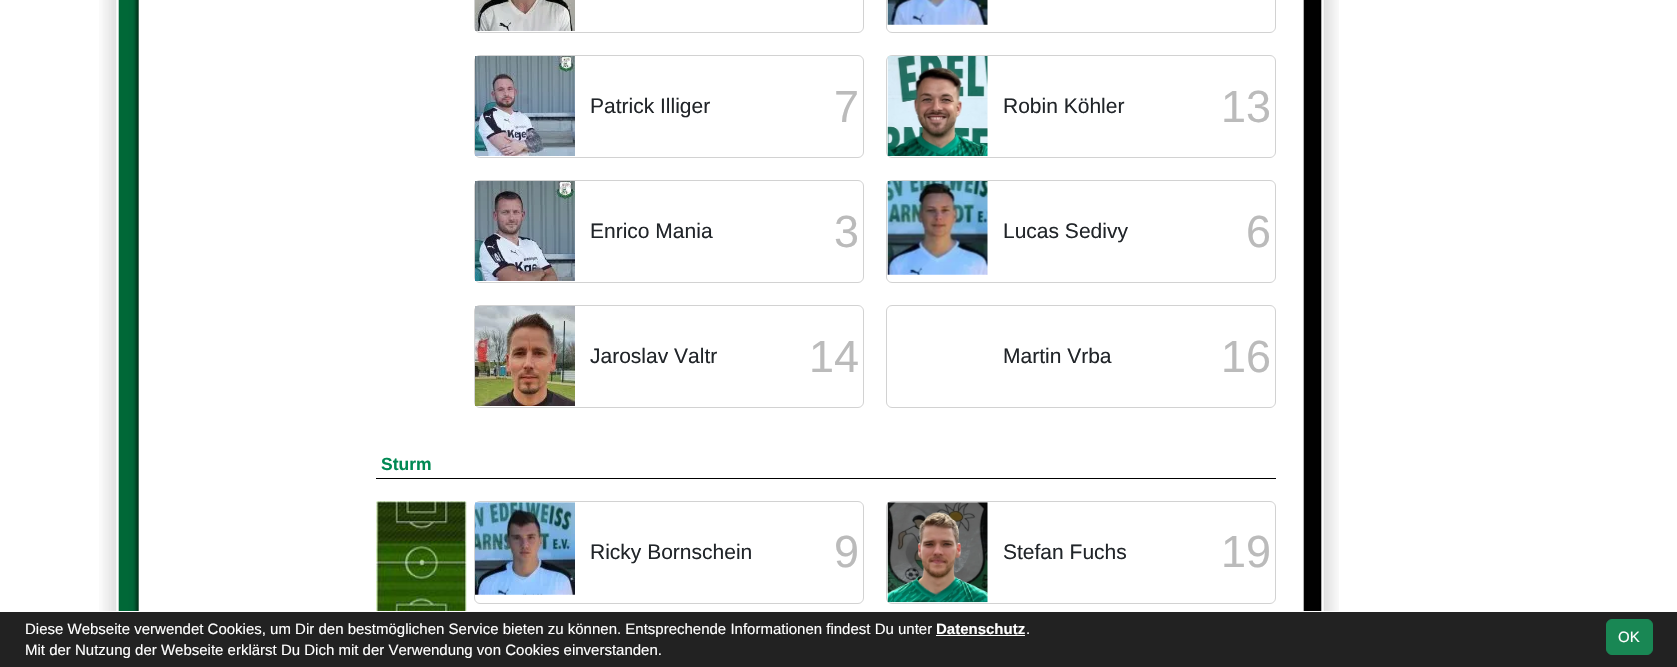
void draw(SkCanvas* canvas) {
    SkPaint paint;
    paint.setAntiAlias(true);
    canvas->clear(0xFFFFFFFF);
    canvas->drawImageRect(SkImages::DeferredFromEncodedData(SkData::MakeFromFileName("img1.png")), SkRect::MakeXYWH(99, 0, 1240, 611), SkSamplingOptions());
    paint.setStyle(SkPaint::kStroke_Style);
    paint.setStrokeWidth(1);
    paint.setColor(0xFFD2D2D2);
    canvas->drawRoundRect(SkRect::MakeXYWH(474.5f, -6.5f, 389, 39), 5.5f, 5.5f, paint);
    canvas->drawImageRect(SkImages::DeferredFromEncodedData(SkData::MakeFromFileName("img2.png")), SkRect::MakeXYWH(475, 0, 100, 31), SkSamplingOptions());
    canvas->drawRoundRect(SkRect::MakeXYWH(886.5f, -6.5f, 389, 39), 5.5f, 5.5f, paint);
    canvas->drawImageRect(SkImages::DeferredFromEncodedData(SkData::MakeFromFileName("img3.png")), SkRect::MakeXYWH(887, 0, 101, 25), SkSamplingOptions());
    canvas->drawRoundRect(SkRect::MakeXYWH(474.5f, 55.5f, 389, 102), 5.5f, 5.5f, paint);
    canvas->drawImageRect(SkImages::DeferredFromEncodedData(SkData::MakeFromFileName("img4.png")), SkRect::MakeXYWH(475, 56, 100, 100), SkSamplingOptions());
    SkFont font1(fontMgr->matchFamilyStyle("Liberation Sans", SkFontStyle::Normal()), 21);
    font1.setSubpixel(true);
    paint.setStyle(SkPaint::kFill_Style);
    paint.setColor(0xFF212529);
    canvas->drawString("Patrick Illiger", 590, 113, font1, paint);
    SkFont font2(fontMgr->matchFamilyStyle("Liberation Sans", SkFontStyle::Normal()), 45);
    font2.setSubpixel(true);
    paint.setColor(0xFFBBBBBB);
    canvas->drawString("7", 834, 122, font2, paint);
    paint.setStyle(SkPaint::kStroke_Style);
    paint.setColor(0xFFD2D2D2);
    canvas->drawRoundRect(SkRect::MakeXYWH(886.5f, 55.5f, 389, 102), 5.5f, 5.5f, paint);
    canvas->drawImageRect(SkImages::DeferredFromEncodedData(SkData::MakeFromFileName("img5.png")), SkRect::MakeXYWH(887, 56, 101, 100), SkSamplingOptions());
    paint.setStyle(SkPaint::kFill_Style);
    paint.setColor(0xFF212529);
    canvas->drawString("Robin Köhler", 1003, 113, font1, paint);
    paint.setColor(0xFFBBBBBB);
    canvas->drawString("13", 1221, 122, font2, paint);
    paint.setStyle(SkPaint::kStroke_Style);
    paint.setColor(0xFFD2D2D2);
    canvas->drawRoundRect(SkRect::MakeXYWH(474.5f, 180.5f, 389, 102), 5.5f, 5.5f, paint);
    canvas->drawImageRect(SkImages::DeferredFromEncodedData(SkData::MakeFromFileName("img6.png")), SkRect::MakeXYWH(475, 181, 100, 100), SkSamplingOptions());
    paint.setStyle(SkPaint::kFill_Style);
    paint.setColor(0xFF212529);
    canvas->drawString("Enrico Mania", 590, 238, font1, paint);
    paint.setColor(0xFFBBBBBB);
    canvas->drawString("3", 834, 247, font2, paint);
    paint.setStyle(SkPaint::kStroke_Style);
    paint.setColor(0xFFD2D2D2);
    canvas->drawRoundRect(SkRect::MakeXYWH(886.5f, 180.5f, 389, 102), 5.5f, 5.5f, paint);
    canvas->drawImageRect(SkImages::DeferredFromEncodedData(SkData::MakeFromFileName("img7.png")), SkRect::MakeXYWH(887, 181, 101, 94), SkSamplingOptions());
    paint.setStyle(SkPaint::kFill_Style);
    paint.setColor(0xFF212529);
    canvas->drawString("Lucas Sedivy", 1003, 238, font1, paint);
    paint.setColor(0xFFBBBBBB);
    canvas->drawString("6", 1246, 247, font2, paint);
    paint.setStyle(SkPaint::kStroke_Style);
    paint.setColor(0xFFD2D2D2);
    canvas->drawRoundRect(SkRect::MakeXYWH(474.5f, 305.5f, 389, 102), 5.5f, 5.5f, paint);
    canvas->drawImageRect(SkImages::DeferredFromEncodedData(SkData::MakeFromFileName("img8.png")), SkRect::MakeXYWH(475, 306, 100, 100), SkSamplingOptions());
    paint.setStyle(SkPaint::kFill_Style);
    paint.setColor(0xFF212529);
    canvas->drawString("Jaroslav Valtr", 590, 363, font1, paint);
    paint.setColor(0xFFBBBBBB);
    canvas->drawString("14", 809, 372, font2, paint);
    paint.setStyle(SkPaint::kStroke_Style);
    paint.setColor(0xFFD2D2D2);
    canvas->drawRoundRect(SkRect::MakeXYWH(886.5f, 305.5f, 389, 102), 5.5f, 5.5f, paint);
    paint.setStyle(SkPaint::kFill_Style);
    paint.setColor(0xFF212529);
    canvas->drawString("Martin Vrba", 1003, 363, font1, paint);
    paint.setColor(0xFFBBBBBB);
    canvas->drawString("16", 1221, 372, font2, paint);
    paint.setColor(0xFF000000);
    canvas->drawRect(SkRect::MakeXYWH(376, 478, 900, 1), paint);
    SkFont font3(fontMgr->matchFamilyStyle("Liberation Sans", SkFontStyle::Bold()), 17.5f);
    font3.setSubpixel(true);
    paint.setColor(0xFF008953);
    canvas->drawString("Sturm", 381, 470, font3, paint);
    canvas->drawImageRect(SkImages::DeferredFromEncodedData(SkData::MakeFromFileName("img9.png")), SkRect::MakeXYWH(376, 501, 91, 110), SkSamplingOptions());
    paint.setStyle(SkPaint::kStroke_Style);
    paint.setColor(0xFFD2D2D2);
    canvas->drawRoundRect(SkRect::MakeXYWH(474.5f, 501.5f, 389, 102), 5.5f, 5.5f, paint);
    canvas->drawImageRect(SkImages::DeferredFromEncodedData(SkData::MakeFromFileName("img10.png")), SkRect::MakeXYWH(475, 502, 100, 93), SkSamplingOptions());
    paint.setStyle(SkPaint::kFill_Style);
    paint.setColor(0xFF212529);
    canvas->drawString("Ricky Bornschein", 590, 559, font1, paint);
    paint.setColor(0xFFBBBBBB);
    canvas->drawString("9", 834, 567, font2, paint);
    paint.setStyle(SkPaint::kStroke_Style);
    paint.setColor(0xFFD2D2D2);
    canvas->drawRoundRect(SkRect::MakeXYWH(886.5f, 501.5f, 389, 102), 5.5f, 5.5f, paint);
    canvas->drawImageRect(SkImages::DeferredFromEncodedData(SkData::MakeFromFileName("img11.png")), SkRect::MakeXYWH(887, 502, 101, 101), SkSamplingOptions());
    paint.setStyle(SkPaint::kFill_Style);
    paint.setColor(0xFF212529);
    canvas->drawString("Stefan Fuchs", 1003, 559, font1, paint);
    paint.setColor(0xFFBBBBBB);
    canvas->drawString("19", 1221, 567, font2, paint);
    paint.setColor(0xFF222222);
    canvas->drawRect(SkRect::MakeXYWH(0, 612, 1677, 55), paint);
    SkFont font4(fontMgr->matchFamilyStyle("Liberation Sans", SkFontStyle::Normal()), 15);
    font4.setSubpixel(true);
    paint.setColor(0xFFFFFFFF);
    canvas->drawString("Diese Webseite verwendet Cookies, um Dir den bestmöglichen Service bieten zu können. Entsprechende Informationen findest Du unter", 25, 634, font4, paint);
    SkFont font5(fontMgr->matchFamilyStyle("Liberation Sans", SkFontStyle::Bold()), 15);
    font5.setSubpixel(true);
    canvas->drawString("Datenschutz", 936, 634, font5, paint);
    canvas->drawRect(SkRect::MakeXYWH(936, 635, 89, 1), paint);
    canvas->drawString(".", 1026, 634, font4, paint);
    canvas->drawString("Mit der Nutzung der Webseite erklärst Du Dich mit der Verwendung von Cookies einverstanden.", 25, 655, font4, paint);
    paint.setColor(0xFF198754);
    canvas->drawRoundRect(SkRect::MakeXYWH(1606.5f, 619.5f, 46, 35), 5.5f, 5.5f, paint);
    paint.setStyle(SkPaint::kStroke_Style);
    canvas->drawRoundRect(SkRect::MakeXYWH(1606.5f, 619.5f, 46, 35), 5.5f, 5.5f, paint);
    paint.setStyle(SkPaint::kFill_Style);
    paint.setColor(0xFFFFFFFF);
    canvas->drawString("OK", 1618, 642, font4, paint);
}
